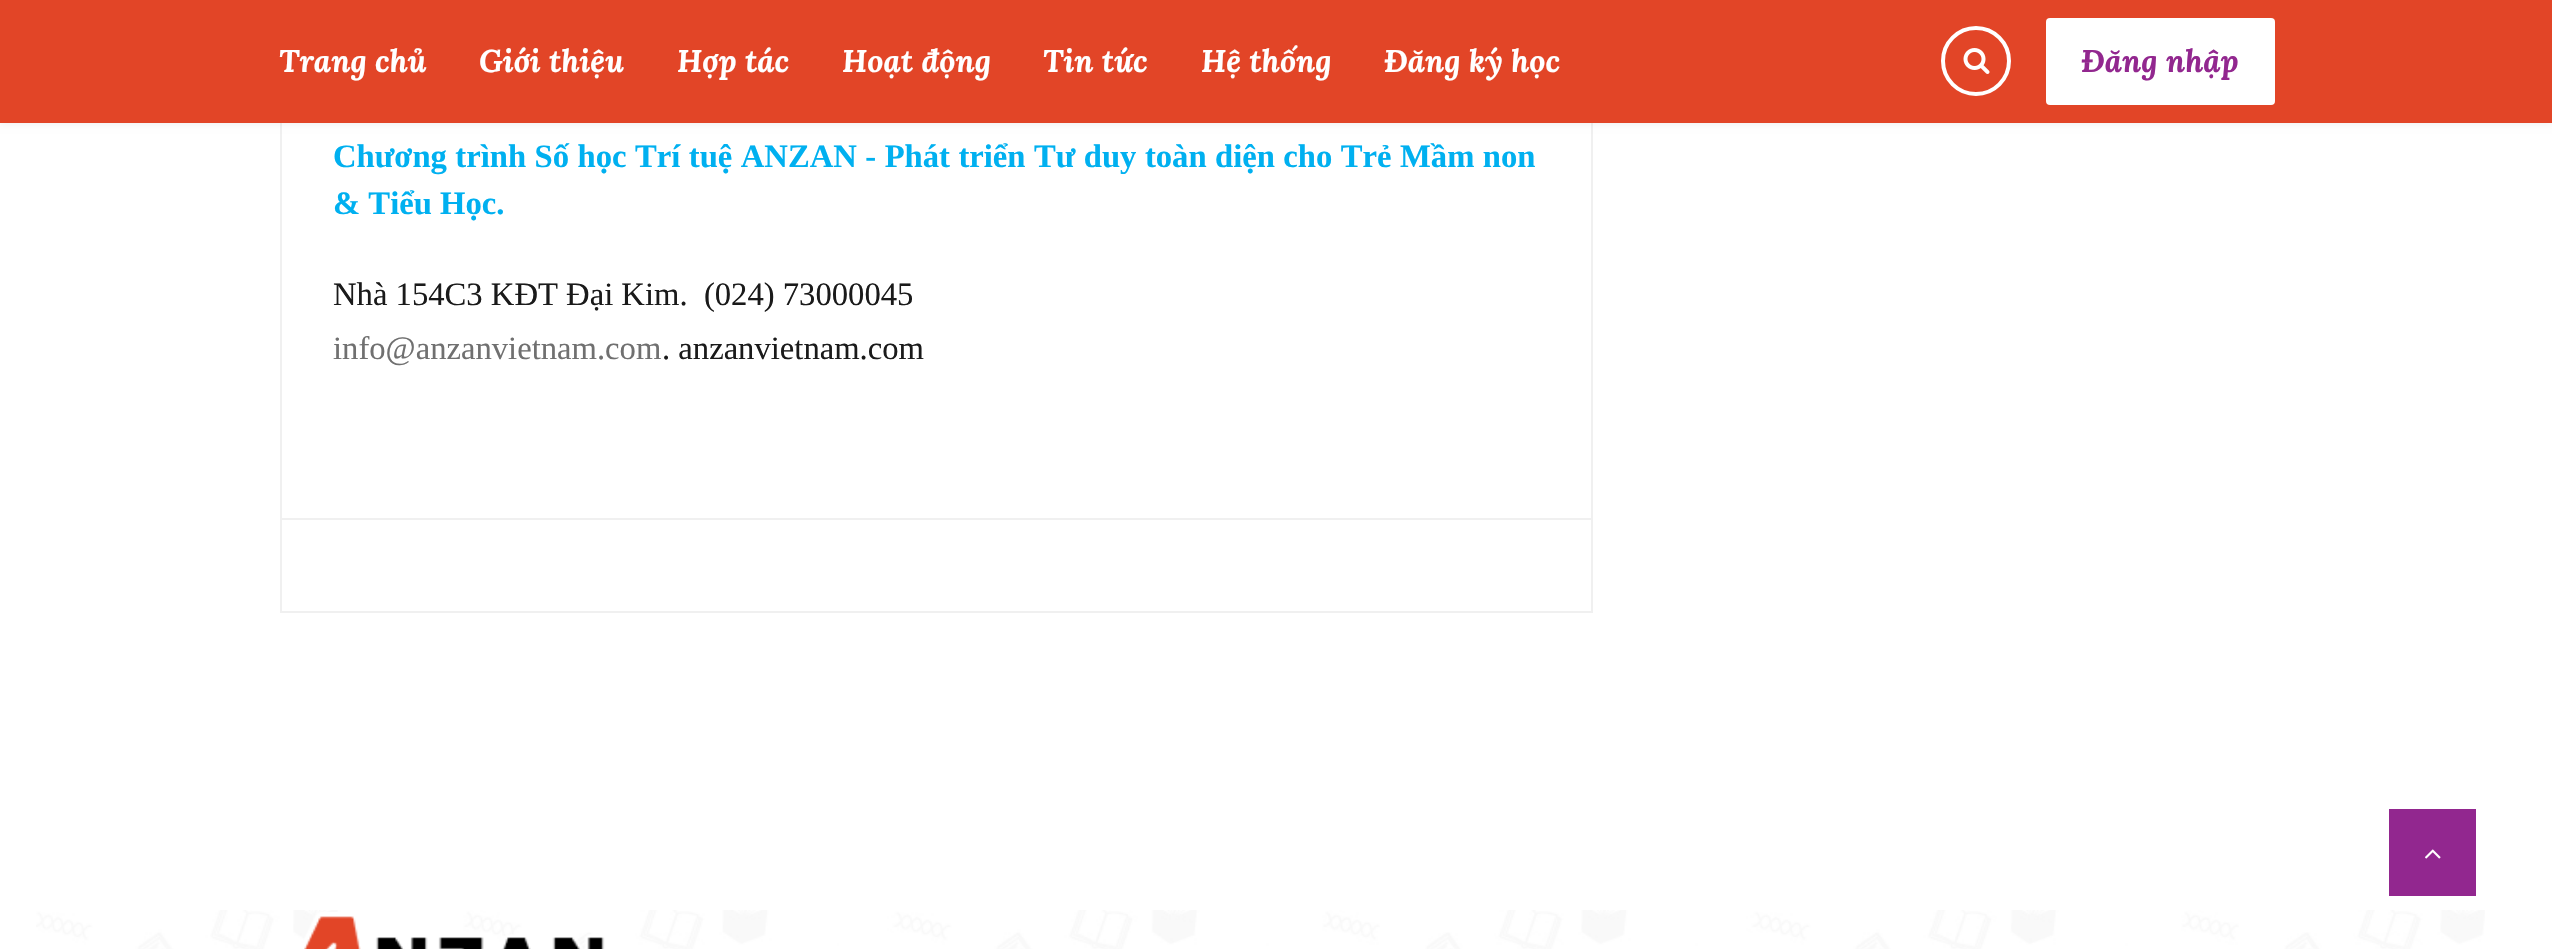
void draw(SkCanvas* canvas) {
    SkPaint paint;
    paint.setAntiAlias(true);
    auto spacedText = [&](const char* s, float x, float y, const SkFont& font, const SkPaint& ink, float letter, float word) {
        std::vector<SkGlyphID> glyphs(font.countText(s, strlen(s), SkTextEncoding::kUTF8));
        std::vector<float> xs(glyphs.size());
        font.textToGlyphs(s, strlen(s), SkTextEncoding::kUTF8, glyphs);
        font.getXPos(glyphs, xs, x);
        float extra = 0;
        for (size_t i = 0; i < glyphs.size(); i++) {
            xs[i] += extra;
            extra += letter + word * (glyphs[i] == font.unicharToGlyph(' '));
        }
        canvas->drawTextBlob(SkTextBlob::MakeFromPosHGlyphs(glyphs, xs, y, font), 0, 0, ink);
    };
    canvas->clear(0xFFFFFFFF);
    paint.setStyle(SkPaint::kStroke_Style);
    paint.setStrokeWidth(2);
    paint.setColor(0xFFF0F0F0);
    canvas->drawRect(SkRect::MakeXYWH(281, -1, 1311, 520), paint);
    paint.setStyle(SkPaint::kFill_Style);
    paint.setColor(0x0F000000);
    paint.setMaskFilter(SkMaskFilter::MakeBlur(kNormal_SkBlurStyle, 3.5f));
    canvas->drawRect(SkRect::MakeXYWH(0, 2, 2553, 122), paint);
    paint.setMaskFilter(nullptr);
    paint.setColor(0xFFE24527);
    canvas->drawRect(SkRect::MakeXYWH(0, 0, 2552, 123), paint);
    SkFont font1(fontMgr->matchFamilyStyle("Lora", SkFontStyle::BoldItalic()), 31.5f);
    font1.setSubpixel(true);
    paint.setColor(0xFFFFFFFF);
    canvas->drawString("Trang chủ", 279, 72, font1, paint);
    canvas->drawString("Giới thiệu", 479, 72, font1, paint);
    canvas->drawString("Hợp tác", 677, 72, font1, paint);
    canvas->drawString("Hoạt động", 842, 72, font1, paint);
    canvas->drawString("Tin tức", 1043, 72, font1, paint);
    canvas->drawString("Hệ thống", 1201, 72, font1, paint);
    canvas->drawString("Đăng ký học", 1384, 72, font1, paint);
    paint.setStyle(SkPaint::kStroke_Style);
    paint.setStrokeWidth(4);
    canvas->drawCircle(1976, 61, 33, paint);
    canvas->drawImageRect(SkImages::DeferredFromEncodedData(SkData::MakeFromFileName("img1.png")), SkRect::MakeXYWH(1963, 48, 27, 26), SkSamplingOptions());
    paint.setStyle(SkPaint::kFill_Style);
    canvas->drawRoundRect(SkRect::MakeXYWH(2046, 18, 229, 87), 4, 4, paint);
    paint.setColor(0xFF92278F);
    canvas->drawString("Đăng nhập", 2081, 72, font1, paint);
    SkFont font2(fontMgr->matchFamilyStyle("Liberation Serif", SkFontStyle::Bold()), 32.65f);
    font2.setSubpixel(true);
    paint.setColor(0xFF00B0F0);
    spacedText("Chương trình Số học Trí tuệ ANZAN - Phát triển Tư duy toàn diện cho Trẻ Mầm non", 333, 167, font2, paint, 0, 0.3f);
    canvas->drawString("& Tiểu Học.", 333, 214, font2, paint);
    SkFont font3(fontMgr->matchFamilyStyle("Liberation Serif", SkFontStyle::Normal()), 32.65f);
    font3.setSubpixel(true);
    paint.setColor(0xFF1A1A1A);
    canvas->drawString("Nhà 154C3 KĐT Đại Kim.  (024) 73000045", 333, 305, font3, paint);
    paint.setColor(0xFF707070);
    canvas->drawString("info@anzanvietnam.com", 333, 359, font3, paint);
    paint.setColor(0xFF1A1A1A);
    canvas->drawString(". anzanvietnam.com", 662, 359, font3, paint);
    paint.setColor(0xFFF0F0F0);
    canvas->drawRect(SkRect::MakeXYWH(1591, 520, 2, 93), paint);
    canvas->drawRect(SkRect::MakeXYWH(280, 611, 1313, 2), paint);
    canvas->drawRect(SkRect::MakeXYWH(280, 520, 2, 93), paint);
    paint.setColor(0xFF92278F);
    canvas->drawRect(SkRect::MakeXYWH(2389, 809, 87, 87), paint);
    canvas->drawImageRect(SkImages::DeferredFromEncodedData(SkData::MakeFromFileName("img2.png")), SkRect::MakeXYWH(2425, 849, 16, 10), SkSamplingOptions());
    canvas->drawImageRect(SkImages::DeferredFromEncodedData(SkData::MakeFromFileName("img3.png")), SkRect::MakeXYWH(36, 910, 2449, 39), SkSamplingOptions());
    canvas->drawImageRect(SkImages::DeferredFromEncodedData(SkData::MakeFromFileName("img4.png")), SkRect::MakeXYWH(304, 912, 301, 37), SkSamplingOptions());
}
